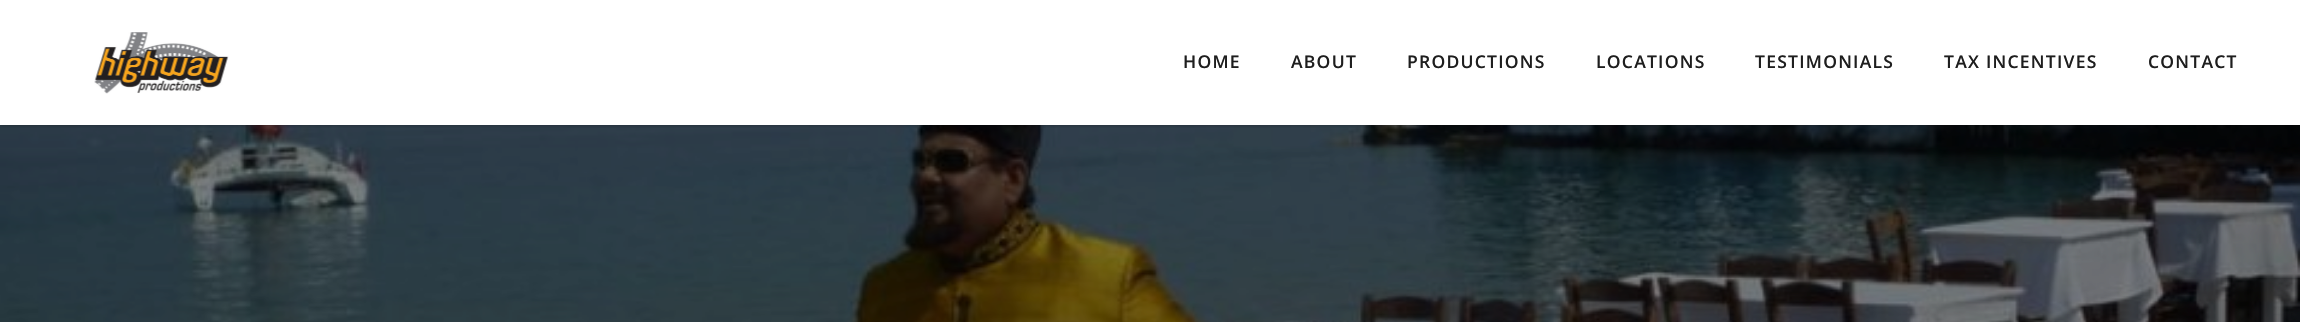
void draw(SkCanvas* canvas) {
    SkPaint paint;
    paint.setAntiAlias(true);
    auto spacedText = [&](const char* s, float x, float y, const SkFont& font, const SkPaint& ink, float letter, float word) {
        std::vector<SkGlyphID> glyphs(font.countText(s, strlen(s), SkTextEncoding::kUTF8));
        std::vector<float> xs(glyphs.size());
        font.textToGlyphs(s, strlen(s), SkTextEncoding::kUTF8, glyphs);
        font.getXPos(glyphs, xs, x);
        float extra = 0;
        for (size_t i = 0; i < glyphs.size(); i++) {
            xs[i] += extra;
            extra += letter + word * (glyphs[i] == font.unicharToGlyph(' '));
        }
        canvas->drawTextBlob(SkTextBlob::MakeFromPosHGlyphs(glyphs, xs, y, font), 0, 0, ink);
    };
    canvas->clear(0xFFFFFFFF);
    canvas->drawImageRect(SkImages::DeferredFromEncodedData(SkData::MakeFromFileName("img2.png")), SkRect::MakeXYWH(0, 125, 2300, 197), SkSamplingOptions());
    canvas->save();
    canvas->clipRect(SkRect::MakeXYWH(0, 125, 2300, 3));
    paint.setColor(0x4D000000);
    paint.setMaskFilter(SkMaskFilter::MakeBlur(kNormal_SkBlurStyle, 2));
    canvas->drawRect(SkRect::MakeXYWH(0, 0, 2300, 125), paint);
    paint.setMaskFilter(nullptr);
    canvas->restore();
    canvas->drawImageRect(SkImages::DeferredFromEncodedData(SkData::MakeFromFileName("img1.png")), SkRect::MakeXYWH(94, 32, 135, 62), SkSamplingOptions());
    SkFont font1(fontMgr->matchFamilyStyle("Open Sans", SkFontStyle(600, SkFontStyle::kNormal_Width, SkFontStyle::kUpright_Slant)), 17.5f);
    font1.setSubpixel(true);
    paint.setColor(0xFF1E1E1E);
    spacedText("HOME", 1183, 68, font1, paint, 1.25f, 0);
    spacedText("ABOUT", 1291, 68, font1, paint, 1.25f, 0);
    spacedText("PRODUCTIONS", 1407, 68, font1, paint, 1.25f, 0);
    spacedText("LOCATIONS", 1596, 68, font1, paint, 1.25f, 0);
    spacedText("TESTIMONIALS", 1755, 68, font1, paint, 1.25f, 0);
    spacedText("TAX INCENTIVES", 1944, 68, font1, paint, 1.25f, 0);
    spacedText("CONTACT", 2148, 68, font1, paint, 1.25f, 0);
}
